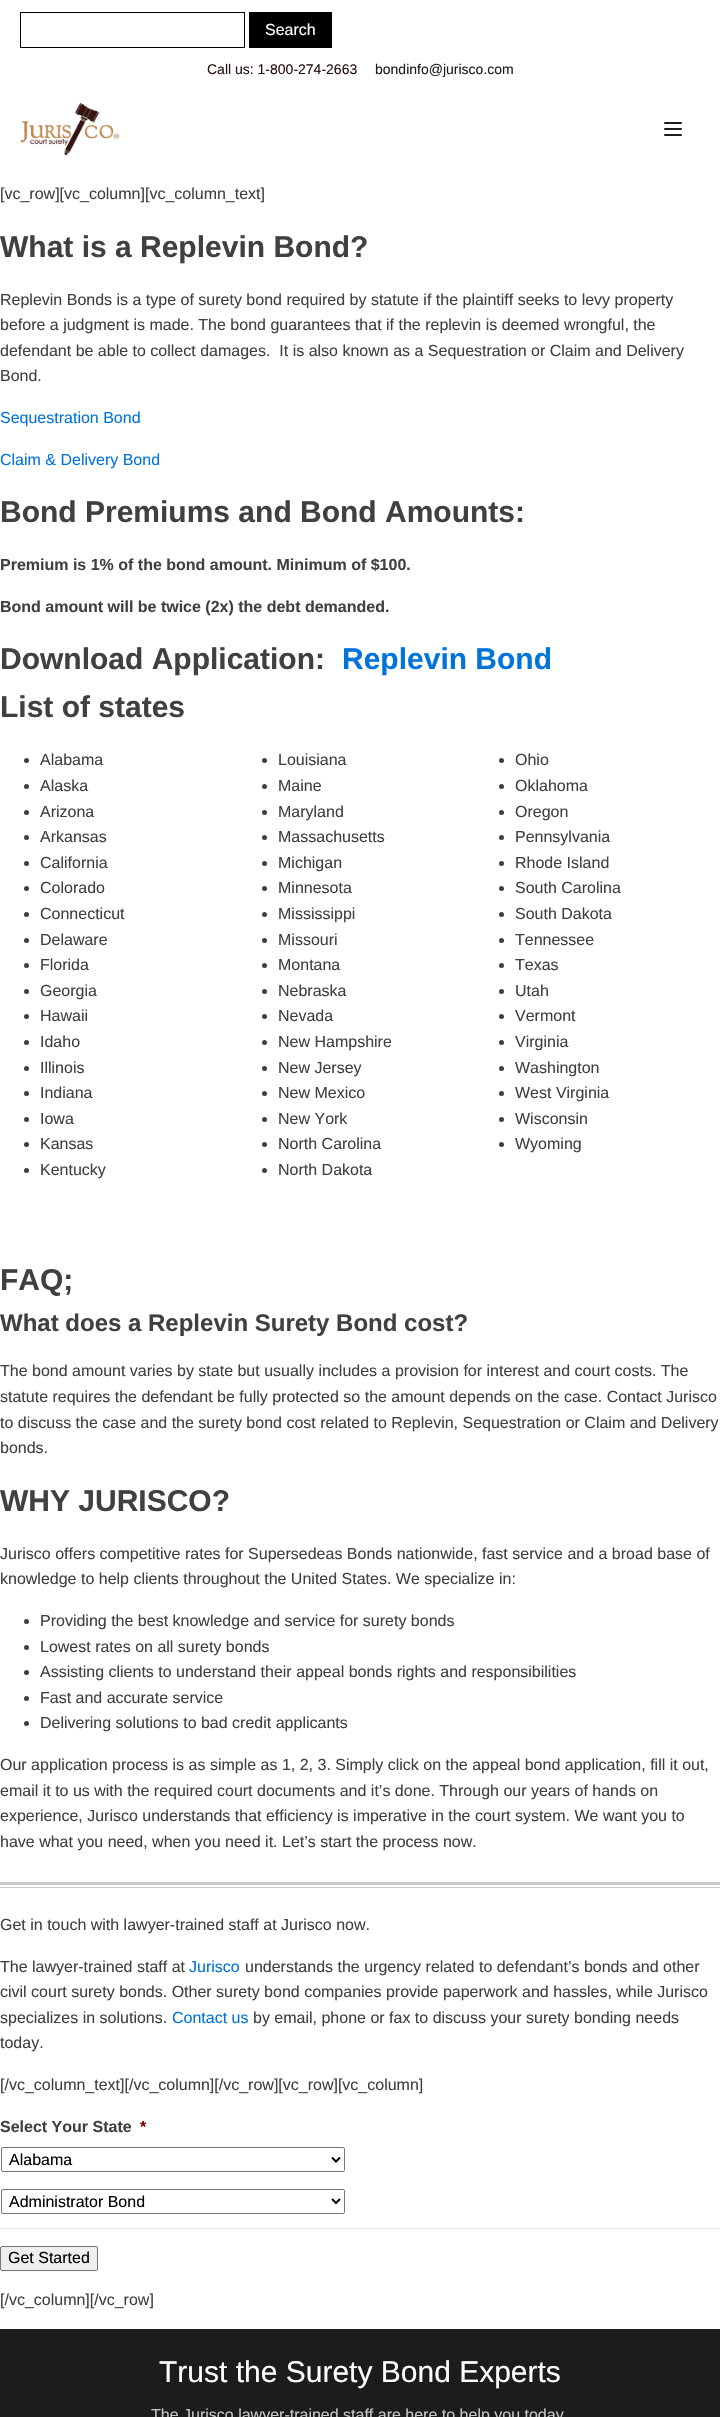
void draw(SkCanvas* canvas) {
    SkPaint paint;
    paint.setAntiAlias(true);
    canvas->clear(0xFFFFFFFF);
    paint.setStyle(SkPaint::kStroke_Style);
    paint.setStrokeWidth(1);
    paint.setColor(0xFF000000);
    canvas->drawRect(SkRect::MakeXYWH(20.5f, 12.5f, 224, 35), paint);
    paint.setStyle(SkPaint::kFill_Style);
    canvas->drawRect(SkRect::MakeXYWH(249, 12, 83, 36), paint);
    SkFont font1(fontMgr->matchFamilyStyle("Liberation Sans", SkFontStyle::Normal()), 16);
    font1.setSubpixel(true);
    paint.setColor(0xFFFFFFFF);
    canvas->drawString("Search", 265, 35, font1, paint);
    SkFont font2(fontMgr->matchFamilyStyle("Liberation Sans", SkFontStyle::Normal()), 14);
    font2.setSubpixel(true);
    paint.setColor(0xFF26100B);
    canvas->drawString("Call us: 1-800-274-2663", 207, 74, font2, paint);
    paint.setColor(0xFF1C1C1C);
    canvas->drawString("bondinfo@jurisco.com", 375, 74, font2, paint);
    canvas->drawImageRect(SkImages::DeferredFromEncodedData(SkData::MakeFromFileName("img1.png")), SkRect::MakeXYWH(20, 102, 100, 53), SkSamplingOptions());
    canvas->drawRoundRect(SkRect::MakeXYWH(664, 122, 18, 2), 1, 1, paint);
    canvas->drawRoundRect(SkRect::MakeXYWH(664, 128, 18, 2), 1, 1, paint);
    canvas->drawRoundRect(SkRect::MakeXYWH(664, 134, 18, 2), 1, 1, paint);
    paint.setColor(0xFF404040);
    canvas->drawString("[vc_row][vc_column][vc_column_text]", 0, 199, font1, paint);
    SkFont font3(fontMgr->matchFamilyStyle("Liberation Sans", SkFontStyle::Bold()), 30);
    font3.setSubpixel(true);
    canvas->drawString("What is a Replevin Bond?", 0, 257, font3, paint);
    canvas->drawString("Replevin Bonds is a type of surety bond required by statute if the plaintiff seeks to levy property", 0, 305, font1, paint);
    canvas->drawString("before a judgment is made. The bond guarantees that if the replevin is deemed wrongful, the", 0, 330, font1, paint);
    canvas->drawString("defendant be able to collect damages.  It is also known as a Sequestration or Claim and Delivery", 0, 356, font1, paint);
    canvas->drawString("Bond.", 0, 381, font1, paint);
    paint.setColor(0xFF0074DB);
    canvas->drawString("Sequestration Bond", 0, 423, font1, paint);
    canvas->drawString("Claim & Delivery Bond", 0, 465, font1, paint);
    paint.setColor(0xFF404040);
    canvas->drawString("Bond Premiums and Bond Amounts:", 0, 522, font3, paint);
    SkFont font4(fontMgr->matchFamilyStyle("Liberation Sans", SkFontStyle::Bold()), 16);
    font4.setSubpixel(true);
    canvas->drawString("Premium is 1% of the bond amount. Minimum of $100.", 0, 570, font4, paint);
    canvas->drawString("Bond amount will be twice (2x) the debt demanded.", 0, 612, font4, paint);
    canvas->drawString("Download Application:", 0, 669, font3, paint);
    paint.setColor(0xFF0074DB);
    canvas->drawString("Replevin Bond", 342, 669, font3, paint);
    paint.setColor(0xFF404040);
    canvas->drawString("List of states", 0, 717, font3, paint);
    canvas->drawCircle(26.5f, 760.5f, 2.5f, paint);
    canvas->drawString("Alabama", 40, 765, font1, paint);
    canvas->drawCircle(26.5f, 786.5f, 2.5f, paint);
    canvas->drawString("Alaska", 40, 791, font1, paint);
    canvas->drawCircle(26.5f, 812.5f, 2.5f, paint);
    canvas->drawString("Arizona", 40, 817, font1, paint);
    canvas->drawCircle(26.5f, 837.5f, 2.5f, paint);
    canvas->drawString("Arkansas", 40, 842, font1, paint);
    canvas->drawCircle(26.5f, 863.5f, 2.5f, paint);
    canvas->drawString("California", 40, 868, font1, paint);
    canvas->drawCircle(26.5f, 888.5f, 2.5f, paint);
    canvas->drawString("Colorado", 40, 893, font1, paint);
    canvas->drawCircle(26.5f, 914.5f, 2.5f, paint);
    canvas->drawString("Connecticut", 40, 919, font1, paint);
    canvas->drawCircle(26.5f, 940.5f, 2.5f, paint);
    canvas->drawString("Delaware", 40, 945, font1, paint);
    canvas->drawCircle(26.5f, 965.5f, 2.5f, paint);
    canvas->drawString("Florida", 40, 970, font1, paint);
    canvas->drawCircle(26.5f, 991.5f, 2.5f, paint);
    canvas->drawString("Georgia", 40, 996, font1, paint);
    canvas->drawCircle(26.5f, 1016.5f, 2.5f, paint);
    canvas->drawString("Hawaii", 40, 1021, font1, paint);
    canvas->drawCircle(26.5f, 1042.5f, 2.5f, paint);
    canvas->drawString("Idaho", 40, 1047, font1, paint);
    canvas->drawCircle(26.5f, 1068.5f, 2.5f, paint);
    canvas->drawString("Illinois", 40, 1073, font1, paint);
    canvas->drawCircle(26.5f, 1093.5f, 2.5f, paint);
    canvas->drawString("Indiana", 40, 1098, font1, paint);
    canvas->drawCircle(26.5f, 1119.5f, 2.5f, paint);
    canvas->drawString("Iowa", 40, 1124, font1, paint);
    canvas->drawCircle(26.5f, 1144.5f, 2.5f, paint);
    canvas->drawString("Kansas", 40, 1149, font1, paint);
    canvas->drawCircle(26.5f, 1170.5f, 2.5f, paint);
    canvas->drawString("Kentucky", 40, 1175, font1, paint);
    canvas->drawCircle(264.5f, 760.5f, 2.5f, paint);
    canvas->drawString("Louisiana", 278, 765, font1, paint);
    canvas->drawCircle(264.5f, 786.5f, 2.5f, paint);
    canvas->drawString("Maine", 278, 791, font1, paint);
    canvas->drawCircle(264.5f, 812.5f, 2.5f, paint);
    canvas->drawString("Maryland", 278, 817, font1, paint);
    canvas->drawCircle(264.5f, 837.5f, 2.5f, paint);
    canvas->drawString("Massachusetts", 278, 842, font1, paint);
    canvas->drawCircle(264.5f, 863.5f, 2.5f, paint);
    canvas->drawString("Michigan", 278, 868, font1, paint);
    canvas->drawCircle(264.5f, 888.5f, 2.5f, paint);
    canvas->drawString("Minnesota", 278, 893, font1, paint);
    canvas->drawCircle(264.5f, 914.5f, 2.5f, paint);
    canvas->drawString("Mississippi", 278, 919, font1, paint);
    canvas->drawCircle(264.5f, 940.5f, 2.5f, paint);
    canvas->drawString("Missouri", 278, 945, font1, paint);
    canvas->drawCircle(264.5f, 965.5f, 2.5f, paint);
    canvas->drawString("Montana", 278, 970, font1, paint);
    canvas->drawCircle(264.5f, 991.5f, 2.5f, paint);
    canvas->drawString("Nebraska", 278, 996, font1, paint);
    canvas->drawCircle(264.5f, 1016.5f, 2.5f, paint);
    canvas->drawString("Nevada", 278, 1021, font1, paint);
    canvas->drawCircle(264.5f, 1042.5f, 2.5f, paint);
    canvas->drawString("New Hampshire", 278, 1047, font1, paint);
    canvas->drawCircle(264.5f, 1068.5f, 2.5f, paint);
    canvas->drawString("New Jersey", 278, 1073, font1, paint);
    canvas->drawCircle(264.5f, 1093.5f, 2.5f, paint);
    canvas->drawString("New Mexico", 278, 1098, font1, paint);
    canvas->drawCircle(264.5f, 1119.5f, 2.5f, paint);
    canvas->drawString("New York", 278, 1124, font1, paint);
    canvas->drawCircle(264.5f, 1144.5f, 2.5f, paint);
    canvas->drawString("North Carolina", 278, 1149, font1, paint);
    canvas->drawCircle(264.5f, 1170.5f, 2.5f, paint);
    canvas->drawString("North Dakota", 278, 1175, font1, paint);
    canvas->drawCircle(501.5f, 760.5f, 2.5f, paint);
    canvas->drawString("Ohio", 515, 765, font1, paint);
    canvas->drawCircle(501.5f, 786.5f, 2.5f, paint);
    canvas->drawString("Oklahoma", 515, 791, font1, paint);
    canvas->drawCircle(501.5f, 812.5f, 2.5f, paint);
    canvas->drawString("Oregon", 515, 817, font1, paint);
    canvas->drawCircle(501.5f, 837.5f, 2.5f, paint);
    canvas->drawString("Pennsylvania", 515, 842, font1, paint);
    canvas->drawCircle(501.5f, 863.5f, 2.5f, paint);
    canvas->drawString("Rhode Island", 515, 868, font1, paint);
    canvas->drawCircle(501.5f, 888.5f, 2.5f, paint);
    canvas->drawString("South Carolina", 515, 893, font1, paint);
    canvas->drawCircle(501.5f, 914.5f, 2.5f, paint);
    canvas->drawString("South Dakota", 515, 919, font1, paint);
    canvas->drawCircle(501.5f, 940.5f, 2.5f, paint);
    canvas->drawString("Tennessee", 515, 945, font1, paint);
    canvas->drawCircle(501.5f, 965.5f, 2.5f, paint);
    canvas->drawString("Texas", 515, 970, font1, paint);
    canvas->drawCircle(501.5f, 991.5f, 2.5f, paint);
    canvas->drawString("Utah", 515, 996, font1, paint);
    canvas->drawCircle(501.5f, 1016.5f, 2.5f, paint);
    canvas->drawString("Vermont", 515, 1021, font1, paint);
    canvas->drawCircle(501.5f, 1042.5f, 2.5f, paint);
    canvas->drawString("Virginia", 515, 1047, font1, paint);
    canvas->drawCircle(501.5f, 1068.5f, 2.5f, paint);
    canvas->drawString("Washington", 515, 1073, font1, paint);
    canvas->drawCircle(501.5f, 1093.5f, 2.5f, paint);
    canvas->drawString("West Virginia", 515, 1098, font1, paint);
    canvas->drawCircle(501.5f, 1119.5f, 2.5f, paint);
    canvas->drawString("Wisconsin", 515, 1124, font1, paint);
    canvas->drawCircle(501.5f, 1144.5f, 2.5f, paint);
    canvas->drawString("Wyoming", 515, 1149, font1, paint);
    canvas->drawString("FAQ;", 0, 1290, font3, paint);
    SkFont font5(fontMgr->matchFamilyStyle("Liberation Sans", SkFontStyle::Bold()), 24);
    font5.setSubpixel(true);
    canvas->drawString("What does a Replevin Surety Bond cost?", 0, 1331, font5, paint);
    canvas->drawString("The bond amount varies by state but usually includes a provision for interest and court costs. The", 0, 1376, font1, paint);
    canvas->drawString("statute requires the defendant be fully protected so the amount depends on the case. Contact Jurisco", 0, 1402, font1, paint);
    canvas->drawString("to discuss the case and the surety bond cost related to Replevin, Sequestration or Claim and Delivery", 0, 1428, font1, paint);
    canvas->drawString("bonds.", 0, 1453, font1, paint);
    canvas->drawString("WHY JURISCO?", 0, 1511, font3, paint);
    canvas->drawString("Jurisco offers competitive rates for Supersedeas Bonds nationwide, fast service and a broad base of", 0, 1559, font1, paint);
    canvas->drawString("knowledge to help clients throughout the United States. We specialize in:", 0, 1584, font1, paint);
    canvas->drawCircle(26.5f, 1621.5f, 2.5f, paint);
    canvas->drawString("Providing the best knowledge and service for surety bonds", 40, 1626, font1, paint);
    canvas->drawCircle(26.5f, 1647.5f, 2.5f, paint);
    canvas->drawString("Lowest rates on all surety bonds", 40, 1652, font1, paint);
    canvas->drawCircle(26.5f, 1672.5f, 2.5f, paint);
    canvas->drawString("Assisting clients to understand their appeal bonds rights and responsibilities", 40, 1677, font1, paint);
    canvas->drawCircle(26.5f, 1698.5f, 2.5f, paint);
    canvas->drawString("Fast and accurate service", 40, 1703, font1, paint);
    canvas->drawCircle(26.5f, 1723.5f, 2.5f, paint);
    canvas->drawString("Delivering solutions to bad credit applicants", 40, 1728, font1, paint);
    canvas->drawString("Our application process is as simple as 1, 2, 3. Simply click on the appeal bond application, fill it out,", 0, 1770, font1, paint);
    canvas->drawString("email it to us with the required court documents and it’s done. Through our years of hands on", 0, 1796, font1, paint);
    canvas->drawString("experience, Jurisco understands that efficiency is imperative in the court system. We want you to", 0, 1821, font1, paint);
    canvas->drawString("have what you need, when you need it. Let’s start the process now.", 0, 1847, font1, paint);
    canvas->drawImageRect(SkImages::DeferredFromEncodedData(SkData::MakeFromFileName("img2.png")), SkRect::MakeXYWH(0, 1882, 720, 6), SkSamplingOptions());
    canvas->drawString("Get in touch with lawyer-trained staff at Jurisco now.", 0, 1930, font1, paint);
    canvas->drawString("The lawyer-trained staff at", 0, 1972, font1, paint);
    paint.setColor(0xFF0074DB);
    canvas->drawString("Jurisco", 189, 1972, font1, paint);
    paint.setColor(0xFF404040);
    canvas->drawString("understands the urgency related to defendant’s bonds and other", 245, 1972, font1, paint);
    canvas->drawString("civil court surety bonds. Other surety bond companies provide paperwork and hassles, while Jurisco", 0, 1997, font1, paint);
    canvas->drawString("specializes in solutions.", 0, 2023, font1, paint);
    paint.setColor(0xFF0074DB);
    canvas->drawString("Contact us", 172, 2023, font1, paint);
    paint.setColor(0xFF404040);
    canvas->drawString("by email, phone or fax to discuss your surety bonding needs", 253, 2023, font1, paint);
    canvas->drawString("today.", 0, 2048, font1, paint);
    canvas->drawString("[/vc_column_text][/vc_column][/vc_row][vc_row][vc_column]", 0, 2090, font1, paint);
    canvas->drawString("Select Your State", 0, 2132, font4, paint);
    paint.setColor(0xFF790000);
    canvas->drawString("*", 140, 2132, font4, paint);
    paint.setStyle(SkPaint::kStroke_Style);
    paint.setColor(0xFF767676);
    canvas->drawRoundRect(SkRect::MakeXYWH(1.5f, 2147.5f, 343, 24), 1.5f, 1.5f, paint);
    paint.setStrokeWidth(2);
    paint.setColor(0xFF000000);
    canvas->drawPath(SkPathBuilder().moveTo(332, 2157.5f).lineTo(336, 2161.5f).lineTo(340, 2157.5f).detach(), paint);
    paint.setStyle(SkPaint::kFill_Style);
    canvas->drawString("Alabama", 9, 2165, font1, paint);
    paint.setStyle(SkPaint::kStroke_Style);
    paint.setStrokeWidth(1);
    paint.setColor(0xFF767676);
    canvas->drawRoundRect(SkRect::MakeXYWH(1.5f, 2189.5f, 343, 24), 1.5f, 1.5f, paint);
    paint.setStrokeWidth(2);
    paint.setColor(0xFF000000);
    canvas->drawPath(SkPathBuilder().moveTo(332, 2199).lineTo(336, 2203).lineTo(340, 2199).detach(), paint);
    paint.setStyle(SkPaint::kFill_Style);
    canvas->drawString("Administrator Bond", 9, 2207, font1, paint);
    paint.setStyle(SkPaint::kStroke_Style);
    paint.setStrokeWidth(1);
    paint.setColor(0xFFCCCCCC);
    paint.setPathEffect(SkDashPathEffect::Make({{1, 1}}, 0));
    canvas->drawPath(SkPathBuilder().moveTo(0, 2228.5f).lineTo(720, 2228.5f).detach(), paint);
    paint.setPathEffect(nullptr);
    paint.setStyle(SkPaint::kFill_Style);
    paint.setColor(0xFFEFEFEF);
    canvas->drawRoundRect(SkRect::MakeXYWH(0.5f, 2246.5f, 97, 24), 1.5f, 1.5f, paint);
    paint.setStyle(SkPaint::kStroke_Style);
    paint.setColor(0xFF767676);
    canvas->drawRoundRect(SkRect::MakeXYWH(0.5f, 2246.5f, 97, 24), 1.5f, 1.5f, paint);
    paint.setStyle(SkPaint::kFill_Style);
    paint.setColor(0xFF000000);
    canvas->drawString("Get Started", 8, 2263, font1, paint);
    paint.setColor(0xFF404040);
    canvas->drawString("[/vc_column][/vc_row]", 0, 2305, font1, paint);
    paint.setColor(0xFF1C1C1C);
    canvas->drawRect(SkRect::MakeXYWH(0, 2329, 720, 88), paint);
    SkFont font6(fontMgr->matchFamilyStyle("Liberation Sans", SkFontStyle::Normal()), 30);
    font6.setSubpixel(true);
    paint.setColor(0xFFFFFFFF);
    canvas->drawString("Trust the Surety Bond Experts", 159, 2382, font6, paint);
    paint.setColor(0xFFC6C6C6);
    canvas->drawString("The Jurisco lawyer-trained staff are here to help you today", 151, 2420, font1, paint);
}
